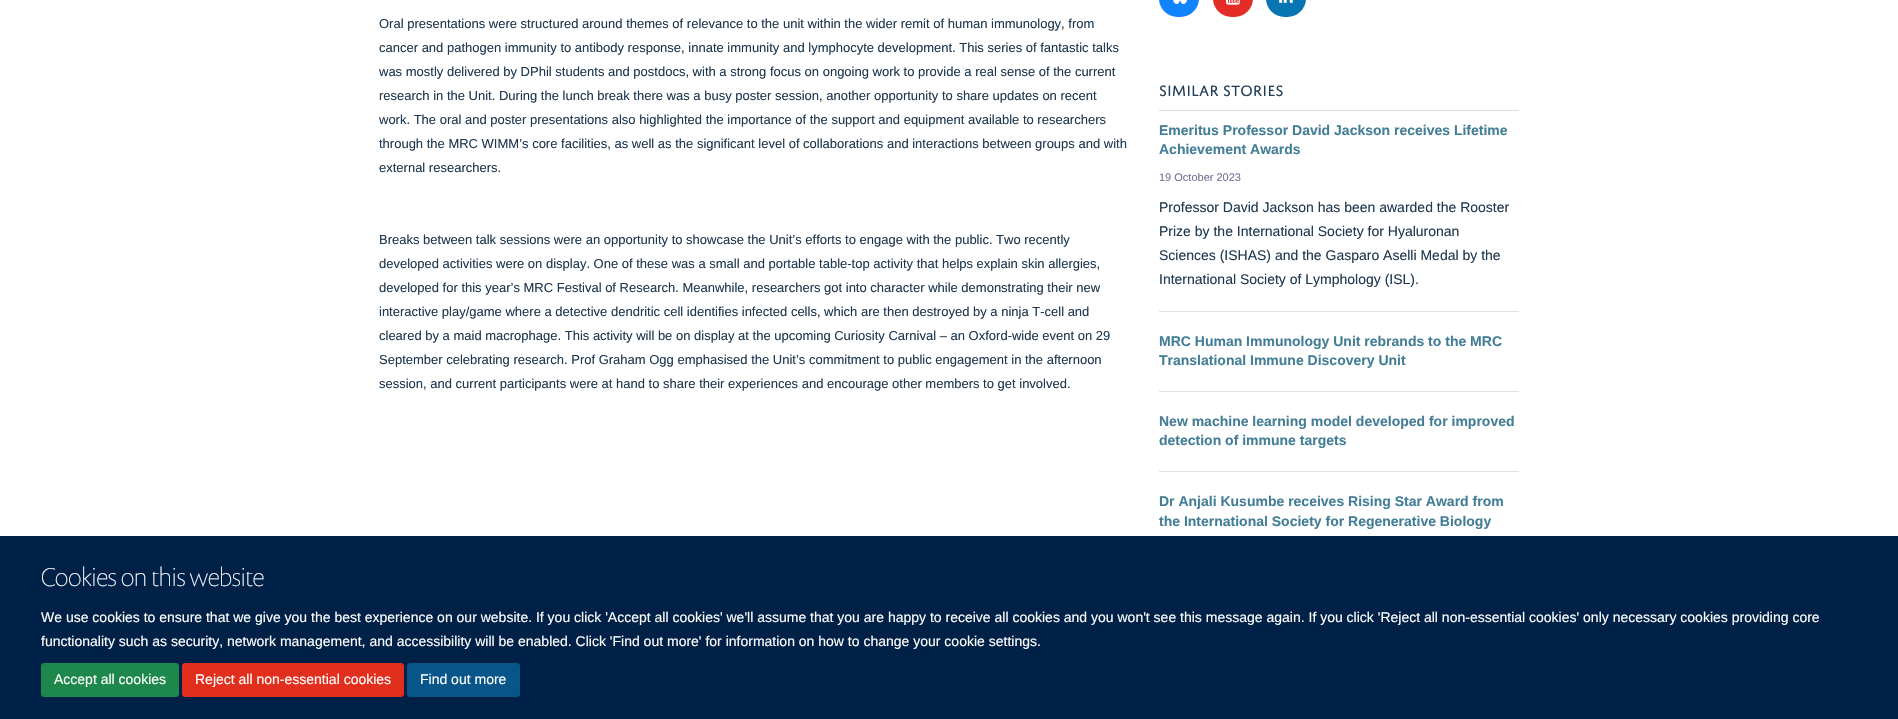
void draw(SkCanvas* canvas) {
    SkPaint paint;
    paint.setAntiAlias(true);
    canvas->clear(0xFFFFFFFF);
    SkFont font1(fontMgr->matchFamilyStyle("Liberation Sans", SkFontStyle::Normal()), 13);
    font1.setSubpixel(true);
    paint.setColor(0xFF1D3850);
    canvas->drawString("Oral presentations were structured around themes of relevance to the unit within the wider remit of human immunology, from", 379, 28, font1, paint);
    canvas->drawString("cancer and pathogen immunity to antibody response, innate immunity and lymphocyte development. This series of fantastic talks", 379, 52, font1, paint);
    canvas->drawString("was mostly delivered by DPhil students and postdocs, with a strong focus on ongoing work to provide a real sense of the current", 379, 76, font1, paint);
    canvas->drawString("research in the Unit. During the lunch break there was a busy poster session, another opportunity to share updates on recent", 379, 100, font1, paint);
    canvas->drawString("work. The oral and poster presentations also highlighted the importance of the support and equipment available to researchers", 379, 124, font1, paint);
    canvas->drawString("through the MRC WIMM’s core facilities, as well as the significant level of collaborations and interactions between groups and with", 379, 148, font1, paint);
    canvas->drawString("external researchers.", 379, 172, font1, paint);
    canvas->drawString("Breaks between talk sessions were an opportunity to showcase the Unit’s efforts to engage with the public. Two recently", 379, 244, font1, paint);
    canvas->drawString("developed activities were on display. One of these was a small and portable table-top activity that helps explain skin allergies,", 379, 268, font1, paint);
    canvas->drawString("developed for this year’s MRC Festival of Research. Meanwhile, researchers got into character while demonstrating their new", 379, 292, font1, paint);
    canvas->drawString("interactive play/game where a detective dendritic cell identifies infected cells, which are then destroyed by a ninja T-cell and", 379, 316, font1, paint);
    canvas->drawString("cleared by a maid macrophage. This activity will be on display at the upcoming Curiosity Carnival – an Oxford-wide event on 29", 379, 340, font1, paint);
    canvas->drawString("September celebrating research. Prof Graham Ogg emphasised the Unit’s commitment to public engagement in the afternoon", 379, 364, font1, paint);
    canvas->drawString("session, and current participants were at hand to share their experiences and encourage other members to get involved.", 379, 388, font1, paint);
    paint.setColor(0xFF1183FC);
    canvas->drawRoundRect(SkRect::MakeXYWH(1159, -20, 40, 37), 20, 20, paint);
    canvas->drawImageRect(SkImages::DeferredFromEncodedData(SkData::MakeFromFileName("img1.png")), SkRect::MakeXYWH(1173, 0, 14, 5), SkSamplingOptions());
    paint.setColor(0xFFE52D27);
    canvas->drawRoundRect(SkRect::MakeXYWH(1213, -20, 40, 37), 20, 20, paint);
    canvas->drawImageRect(SkImages::DeferredFromEncodedData(SkData::MakeFromFileName("img2.png")), SkRect::MakeXYWH(1226, 0, 14, 5), SkSamplingOptions());
    paint.setColor(0xFF0976B4);
    canvas->drawRoundRect(SkRect::MakeXYWH(1266, -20, 40, 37), 20, 20, paint);
    canvas->drawImageRect(SkImages::DeferredFromEncodedData(SkData::MakeFromFileName("img3.png")), SkRect::MakeXYWH(1279, 0, 14, 3), SkSamplingOptions());
    paint.setColor(0xFFDDDDDD);
    canvas->drawRect(SkRect::MakeXYWH(1159, 110, 360, 1), paint);
    SkFont font2(fontMgr->matchFamilyStyle("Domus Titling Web", SkFontStyle::Normal()), 16);
    font2.setSubpixel(true);
    paint.setColor(0xFF203E58);
    canvas->drawString("SIMILAR STORIES", 1159, 96, font2, paint);
    paint.setColor(0xFFDFE1E4);
    canvas->drawRect(SkRect::MakeXYWH(1159, 311, 360, 1), paint);
    SkFont font3(fontMgr->matchFamilyStyle("Liberation Sans", SkFontStyle::Bold()), 14);
    font3.setSubpixel(true);
    paint.setColor(0xFF437E96);
    canvas->drawString("Emeritus Professor David Jackson receives Lifetime", 1159, 135, font3, paint);
    canvas->drawString("Achievement Awards", 1159, 154, font3, paint);
    SkFont font4(fontMgr->matchFamilyStyle("Liberation Sans", SkFontStyle::Normal()), 11);
    font4.setSubpixel(true);
    paint.setColor(0xFF727295);
    canvas->drawString("19 October 2023", 1159, 181, font4, paint);
    SkFont font5(fontMgr->matchFamilyStyle("Liberation Sans", SkFontStyle::Normal()), 14);
    font5.setSubpixel(true);
    paint.setColor(0xFF1D3850);
    canvas->drawString("Professor David Jackson has been awarded the Rooster", 1159, 212, font5, paint);
    canvas->drawString("Prize by the International Society for Hyaluronan", 1159, 236, font5, paint);
    canvas->drawString("Sciences (ISHAS) and the Gasparo Aselli Medal by the", 1159, 260, font5, paint);
    canvas->drawString("International Society of Lymphology (ISL).", 1159, 284, font5, paint);
    paint.setColor(0xFFDFE1E4);
    canvas->drawRect(SkRect::MakeXYWH(1159, 391, 360, 1), paint);
    paint.setColor(0xFF437E96);
    canvas->drawString("MRC Human Immunology Unit rebrands to the MRC", 1159, 346, font3, paint);
    canvas->drawString("Translational Immune Discovery Unit", 1159, 365, font3, paint);
    paint.setColor(0xFFDFE1E4);
    canvas->drawRect(SkRect::MakeXYWH(1159, 471, 360, 1), paint);
    paint.setColor(0xFF437E96);
    canvas->drawString("New machine learning model developed for improved", 1159, 426, font3, paint);
    canvas->drawString("detection of immune targets", 1159, 445, font3, paint);
    canvas->drawString("Dr Anjali Kusumbe receives Rising Star Award from", 1159, 506, font3, paint);
    canvas->drawString("the International Society for Regenerative Biology", 1159, 526, font3, paint);
    paint.setColor(0xFF002147);
    canvas->drawRect(SkRect::MakeXYWH(0, 536, 1898, 183), paint);
    SkFont font6(fontMgr->matchFamilyStyle("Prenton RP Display", SkFontStyle(100, SkFontStyle::kNormal_Width, SkFontStyle::kUpright_Slant)), 26);
    font6.setSubpixel(true);
    paint.setColor(0xFFFFFFFF);
    canvas->drawString("Cookies on this website", 41, 586, font6, paint);
    canvas->drawString("We use cookies to ensure that we give you the best experience on our website. If you click 'Accept all cookies' we'll assume that you are happy to receive all cookies and you won't see this message again. If you click 'Reject all non-essential cookies' only necessary cookies providing core", 41, 622, font5, paint);
    canvas->drawString("functionality such as security, network management, and accessibility will be enabled. Click 'Find out more' for information on how to change your cookie settings.", 41, 646, font5, paint);
    paint.setColor(0xFF1E874B);
    canvas->drawRoundRect(SkRect::MakeXYWH(41.5f, 663.5f, 137, 33), 2.5f, 2.5f, paint);
    paint.setStyle(SkPaint::kStroke_Style);
    paint.setStrokeWidth(1);
    canvas->drawRoundRect(SkRect::MakeXYWH(41.5f, 663.5f, 137, 33), 2.5f, 2.5f, paint);
    paint.setStyle(SkPaint::kFill_Style);
    paint.setColor(0xFFFFFFFF);
    canvas->drawString("Accept all cookies", 54, 684, font5, paint);
    paint.setColor(0xFFE22E1C);
    canvas->drawRoundRect(SkRect::MakeXYWH(182.5f, 663.5f, 221, 33), 2.5f, 2.5f, paint);
    paint.setStyle(SkPaint::kStroke_Style);
    canvas->drawRoundRect(SkRect::MakeXYWH(182.5f, 663.5f, 221, 33), 2.5f, 2.5f, paint);
    paint.setStyle(SkPaint::kFill_Style);
    paint.setColor(0xFFFFFFFF);
    canvas->drawString("Reject all non-essential cookies", 195, 684, font5, paint);
    paint.setColor(0xFF085589);
    canvas->drawRoundRect(SkRect::MakeXYWH(407.5f, 663.5f, 112, 33), 2.5f, 2.5f, paint);
    paint.setStyle(SkPaint::kStroke_Style);
    canvas->drawRoundRect(SkRect::MakeXYWH(407.5f, 663.5f, 112, 33), 2.5f, 2.5f, paint);
    paint.setStyle(SkPaint::kFill_Style);
    paint.setColor(0xFFFFFFFF);
    canvas->drawString("Find out more", 420, 684, font5, paint);
}
